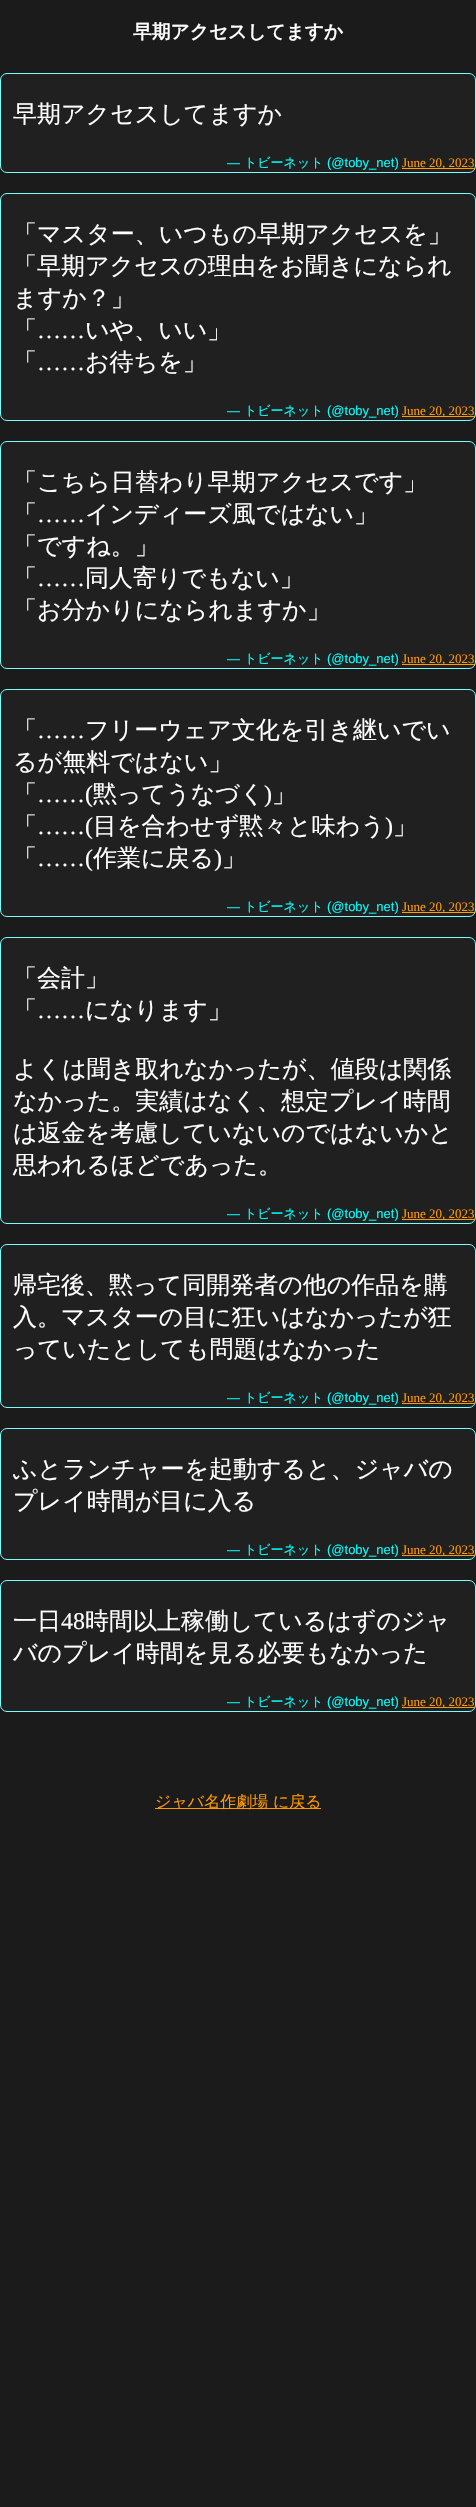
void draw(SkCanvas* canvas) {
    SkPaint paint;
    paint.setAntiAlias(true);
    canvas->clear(0xFF1B1B1B);
    SkFont font1(fontMgr->matchFamilyStyle("WenQuanYi Zen Hei", SkFontStyle::Bold()), 18.75f);
    font1.setSubpixel(true);
    paint.setColor(0xFFFFFFFF);
    canvas->drawString("早期アクセスしてますか", 133, 38, font1, paint);
    paint.setColor(0xFF202020);
    canvas->drawRoundRect(SkRect::MakeXYWH(0.5f, 73.5f, 475, 99), 6.5f, 6.5f, paint);
    paint.setStyle(SkPaint::kStroke_Style);
    paint.setStrokeWidth(1);
    paint.setColor(0xFF77FFFF);
    canvas->drawRoundRect(SkRect::MakeXYWH(0.5f, 73.5f, 475, 99), 6.5f, 6.5f, paint);
    SkFont font2(fontMgr->matchFamilyStyle("WenQuanYi Zen Hei", SkFontStyle(500, SkFontStyle::kNormal_Width, SkFontStyle::kUpright_Slant)), 24);
    font2.setSubpixel(true);
    paint.setStyle(SkPaint::kFill_Style);
    paint.setColor(0xFFFFFFFF);
    canvas->drawString("早期アクセスしてますか", 13, 122, font2, paint);
    SkFont font3(fontMgr->matchFamilyStyle("Liberation Sans", SkFontStyle::Normal()), 13);
    font3.setSubpixel(true);
    paint.setColor(0xFF00FFFF);
    canvas->drawString("—", 227, 167, font3, paint);
    SkFont font4(fontMgr->matchFamilyStyle("WenQuanYi Zen Hei", SkFontStyle(500, SkFontStyle::kNormal_Width, SkFontStyle::kUpright_Slant)), 13);
    font4.setSubpixel(true);
    canvas->drawString("トビーネット", 244, 167, font4, paint);
    canvas->drawString("(@toby_net)", 327, 167, font3, paint);
    paint.setColor(0xFFFF9900);
    canvas->drawRect(SkRect::MakeXYWH(402, 168, 73, 1), paint);
    SkFont font5(fontMgr->matchFamilyStyle("Liberation Serif", SkFontStyle::Normal()), 13);
    font5.setSubpixel(true);
    canvas->drawString("June 20, 2023", 402, 167, font5, paint);
    paint.setColor(0xFF202020);
    canvas->drawRoundRect(SkRect::MakeXYWH(0.5f, 193.5f, 475, 227), 6.5f, 6.5f, paint);
    paint.setStyle(SkPaint::kStroke_Style);
    paint.setColor(0xFF77FFFF);
    canvas->drawRoundRect(SkRect::MakeXYWH(0.5f, 193.5f, 475, 227), 6.5f, 6.5f, paint);
    paint.setStyle(SkPaint::kFill_Style);
    paint.setColor(0xFFFFFFFF);
    canvas->drawString("「マスター、いつもの早期アクセスを」", 13, 242, font2, paint);
    canvas->drawString("「早期アクセスの理由をお聞きになられ", 13, 274, font2, paint);
    canvas->drawString("ますか？」", 13, 306, font2, paint);
    canvas->drawString("「", 13, 338, font2, paint);
    SkFont font6(fontMgr->matchFamilyStyle("Liberation Serif", SkFontStyle::Normal()), 24);
    font6.setSubpixel(true);
    canvas->drawString("……", 37, 338, font6, paint);
    canvas->drawString("いや、いい」", 85, 338, font2, paint);
    canvas->drawString("「", 13, 370, font2, paint);
    canvas->drawString("……", 37, 370, font6, paint);
    canvas->drawString("お待ちを」", 85, 370, font2, paint);
    paint.setColor(0xFF00FFFF);
    canvas->drawString("—", 227, 415, font3, paint);
    canvas->drawString("トビーネット", 244, 415, font4, paint);
    canvas->drawString("(@toby_net)", 327, 415, font3, paint);
    paint.setColor(0xFFFF9900);
    canvas->drawRect(SkRect::MakeXYWH(402, 416, 73, 1), paint);
    canvas->drawString("June 20, 2023", 402, 415, font5, paint);
    paint.setColor(0xFF202020);
    canvas->drawRoundRect(SkRect::MakeXYWH(0.5f, 441.5f, 475, 227), 6.5f, 6.5f, paint);
    paint.setStyle(SkPaint::kStroke_Style);
    paint.setColor(0xFF77FFFF);
    canvas->drawRoundRect(SkRect::MakeXYWH(0.5f, 441.5f, 475, 227), 6.5f, 6.5f, paint);
    paint.setStyle(SkPaint::kFill_Style);
    paint.setColor(0xFFFFFFFF);
    canvas->drawString("「こちら日替わり早期アクセスです」", 13, 490, font2, paint);
    canvas->drawString("「", 13, 522, font2, paint);
    canvas->drawString("……", 37, 522, font6, paint);
    canvas->drawString("インディーズ風ではない」", 85, 522, font2, paint);
    canvas->drawString("「ですね。」", 13, 554, font2, paint);
    canvas->drawString("「", 13, 586, font2, paint);
    canvas->drawString("同人寄りでもない」", 85, 586, font2, paint);
    canvas->drawString("……", 37, 586, font6, paint);
    canvas->drawString("「お分かりになられますか」", 13, 618, font2, paint);
    paint.setColor(0xFF00FFFF);
    canvas->drawString("—", 227, 663, font3, paint);
    canvas->drawString("トビーネット", 244, 663, font4, paint);
    canvas->drawString("(@toby_net)", 327, 663, font3, paint);
    paint.setColor(0xFFFF9900);
    canvas->drawRect(SkRect::MakeXYWH(402, 664, 73, 1), paint);
    canvas->drawString("June 20, 2023", 402, 663, font5, paint);
    paint.setColor(0xFF202020);
    canvas->drawRoundRect(SkRect::MakeXYWH(0.5f, 689.5f, 475, 227), 6.5f, 6.5f, paint);
    paint.setStyle(SkPaint::kStroke_Style);
    paint.setColor(0xFF77FFFF);
    canvas->drawRoundRect(SkRect::MakeXYWH(0.5f, 689.5f, 475, 227), 6.5f, 6.5f, paint);
    paint.setStyle(SkPaint::kFill_Style);
    paint.setColor(0xFFFFFFFF);
    canvas->drawString("「", 13, 738, font2, paint);
    canvas->drawString("フリーウェア文化を引き継いでい", 85, 738, font2, paint);
    canvas->drawString("……", 37, 738, font6, paint);
    canvas->drawString("るが無料ではない」", 13, 770, font2, paint);
    canvas->drawString("「", 13, 802, font2, paint);
    canvas->drawString("……(", 37, 802, font6, paint);
    canvas->drawString("黙ってうなづく", 93, 802, font2, paint);
    canvas->drawString(")", 264, 802, font6, paint);
    canvas->drawString("」", 272, 802, font2, paint);
    canvas->drawString("「", 13, 834, font2, paint);
    canvas->drawString("……(", 37, 834, font6, paint);
    canvas->drawString("目を合わせず黙々と味わう", 93, 834, font2, paint);
    canvas->drawString(")", 385, 834, font6, paint);
    canvas->drawString("」", 393, 834, font2, paint);
    canvas->drawString("「", 13, 866, font2, paint);
    canvas->drawString("……(", 37, 866, font6, paint);
    canvas->drawString("作業に戻る", 93, 866, font2, paint);
    canvas->drawString(")", 214, 866, font6, paint);
    canvas->drawString("」", 222, 866, font2, paint);
    paint.setColor(0xFF00FFFF);
    canvas->drawString("—", 227, 911, font3, paint);
    canvas->drawString("トビーネット", 244, 911, font4, paint);
    canvas->drawString("(@toby_net)", 327, 911, font3, paint);
    paint.setColor(0xFFFF9900);
    canvas->drawRect(SkRect::MakeXYWH(402, 912, 73, 1), paint);
    canvas->drawString("June 20, 2023", 402, 911, font5, paint);
    paint.setColor(0xFF202020);
    canvas->drawRoundRect(SkRect::MakeXYWH(0.5f, 937.5f, 475, 286), 6.5f, 6.5f, paint);
    paint.setStyle(SkPaint::kStroke_Style);
    paint.setColor(0xFF77FFFF);
    canvas->drawRoundRect(SkRect::MakeXYWH(0.5f, 937.5f, 475, 286), 6.5f, 6.5f, paint);
    paint.setStyle(SkPaint::kFill_Style);
    paint.setColor(0xFFFFFFFF);
    canvas->drawString("「会計」", 13, 986, font2, paint);
    canvas->drawString("「", 13, 1018, font2, paint);
    canvas->drawString("……", 37, 1018, font6, paint);
    canvas->drawString("になります」", 85, 1018, font2, paint);
    canvas->drawString("よくは聞き取れなかったが、値段は関係", 13, 1077, font2, paint);
    canvas->drawString("なかった。実績はなく、想定プレイ時間", 13, 1109, font2, paint);
    canvas->drawString("は返金を考慮していないのではないかと", 13, 1141, font2, paint);
    canvas->drawString("思われるほどであった。", 13, 1173, font2, paint);
    paint.setColor(0xFF00FFFF);
    canvas->drawString("—", 227, 1218, font3, paint);
    canvas->drawString("トビーネット", 244, 1218, font4, paint);
    canvas->drawString("(@toby_net)", 327, 1218, font3, paint);
    paint.setColor(0xFFFF9900);
    canvas->drawRect(SkRect::MakeXYWH(402, 1219, 73, 1), paint);
    canvas->drawString("June 20, 2023", 402, 1218, font5, paint);
    paint.setColor(0xFF202020);
    canvas->drawRoundRect(SkRect::MakeXYWH(0.5f, 1244.5f, 475, 163), 6.5f, 6.5f, paint);
    paint.setStyle(SkPaint::kStroke_Style);
    paint.setColor(0xFF77FFFF);
    canvas->drawRoundRect(SkRect::MakeXYWH(0.5f, 1244.5f, 475, 163), 6.5f, 6.5f, paint);
    paint.setStyle(SkPaint::kFill_Style);
    paint.setColor(0xFFFFFFFF);
    canvas->drawString("帰宅後、黙って同開発者の他の作品を購", 13, 1293, font2, paint);
    canvas->drawString("入。マスターの目に狂いはなかったが狂", 13, 1325, font2, paint);
    canvas->drawString("っていたとしても問題はなかった", 13, 1357, font2, paint);
    paint.setColor(0xFF00FFFF);
    canvas->drawString("—", 227, 1402, font3, paint);
    canvas->drawString("トビーネット", 244, 1402, font4, paint);
    canvas->drawString("(@toby_net)", 327, 1402, font3, paint);
    paint.setColor(0xFFFF9900);
    canvas->drawRect(SkRect::MakeXYWH(402, 1403, 73, 1), paint);
    canvas->drawString("June 20, 2023", 402, 1402, font5, paint);
    paint.setColor(0xFF202020);
    canvas->drawRoundRect(SkRect::MakeXYWH(0.5f, 1428.5f, 475, 131), 6.5f, 6.5f, paint);
    paint.setStyle(SkPaint::kStroke_Style);
    paint.setColor(0xFF77FFFF);
    canvas->drawRoundRect(SkRect::MakeXYWH(0.5f, 1428.5f, 475, 131), 6.5f, 6.5f, paint);
    paint.setStyle(SkPaint::kFill_Style);
    paint.setColor(0xFFFFFFFF);
    canvas->drawString("ふとランチャーを起動すると、ジャバの", 13, 1477, font2, paint);
    canvas->drawString("プレイ時間が目に入る", 13, 1509, font2, paint);
    paint.setColor(0xFF00FFFF);
    canvas->drawString("—", 227, 1554, font3, paint);
    canvas->drawString("トビーネット", 244, 1554, font4, paint);
    canvas->drawString("(@toby_net)", 327, 1554, font3, paint);
    paint.setColor(0xFFFF9900);
    canvas->drawRect(SkRect::MakeXYWH(402, 1555, 73, 1), paint);
    canvas->drawString("June 20, 2023", 402, 1554, font5, paint);
    paint.setColor(0xFF202020);
    canvas->drawRoundRect(SkRect::MakeXYWH(0.5f, 1580.5f, 475, 131), 6.5f, 6.5f, paint);
    paint.setStyle(SkPaint::kStroke_Style);
    paint.setColor(0xFF77FFFF);
    canvas->drawRoundRect(SkRect::MakeXYWH(0.5f, 1580.5f, 475, 131), 6.5f, 6.5f, paint);
    paint.setStyle(SkPaint::kFill_Style);
    paint.setColor(0xFFFFFFFF);
    canvas->drawString("一日", 13, 1629, font2, paint);
    canvas->drawString("48", 61, 1629, font6, paint);
    canvas->drawString("時間以上稼働しているはずのジャ", 85, 1629, font2, paint);
    canvas->drawString("バのプレイ時間を見る必要もなかった", 13, 1661, font2, paint);
    paint.setColor(0xFF00FFFF);
    canvas->drawString("—", 227, 1706, font3, paint);
    canvas->drawString("トビーネット", 244, 1706, font4, paint);
    canvas->drawString("(@toby_net)", 327, 1706, font3, paint);
    paint.setColor(0xFFFF9900);
    canvas->drawRect(SkRect::MakeXYWH(402, 1707, 73, 1), paint);
    canvas->drawString("June 20, 2023", 402, 1706, font5, paint);
    canvas->drawRect(SkRect::MakeXYWH(155, 1808, 166, 1), paint);
    SkFont font7(fontMgr->matchFamilyStyle("WenQuanYi Zen Hei", SkFontStyle(500, SkFontStyle::kNormal_Width, SkFontStyle::kUpright_Slant)), 16);
    font7.setSubpixel(true);
    canvas->drawString("ジャバ名作劇場 に戻る", 155, 1807, font7, paint);
}
